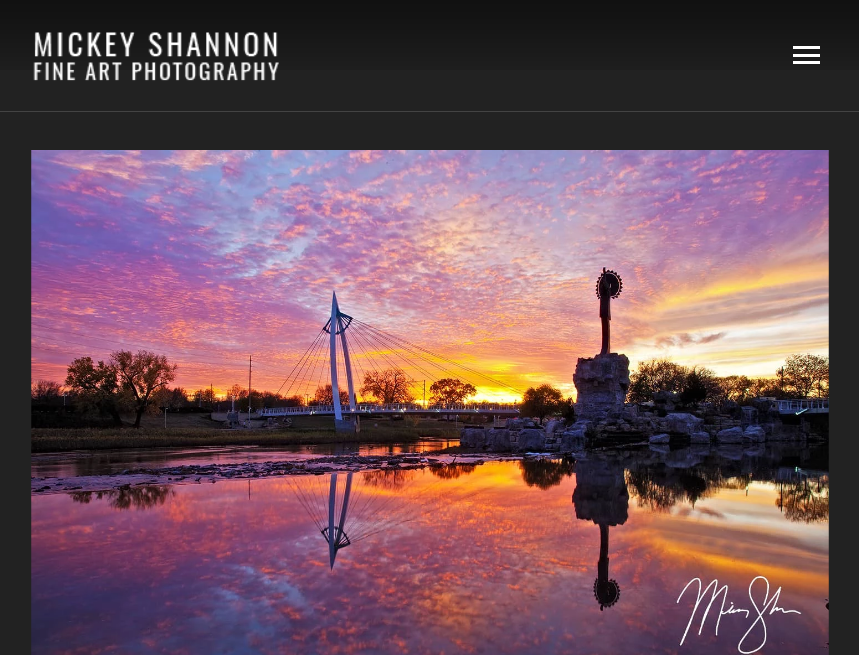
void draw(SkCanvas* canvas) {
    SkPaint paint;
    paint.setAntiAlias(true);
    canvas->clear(0xFF222222);
    canvas->drawImageRect(SkImages::DeferredFromEncodedData(SkData::MakeFromFileName("img1.png")), SkRect::MakeXYWH(0, 0, 859, 70), SkSamplingOptions());
    paint.setColor(0xFF434343);
    canvas->drawRect(SkRect::MakeXYWH(0, 111, 859, 1), paint);
    canvas->drawImageRect(SkImages::DeferredFromEncodedData(SkData::MakeFromFileName("img2.png")), SkRect::MakeXYWH(33, 32, 246, 49), SkSamplingOptions());
    paint.setColor(0xFFFFFFFF);
    canvas->drawRect(SkRect::MakeXYWH(793, 54, 27, 3), paint);
    canvas->drawRect(SkRect::MakeXYWH(793, 46, 27, 3), paint);
    canvas->drawRect(SkRect::MakeXYWH(793, 61, 27, 3), paint);
    canvas->drawImageRect(SkImages::DeferredFromEncodedData(SkData::MakeFromFileName("img3.png")), SkRect::MakeXYWH(31, 150, 798, 505), SkSamplingOptions());
}
